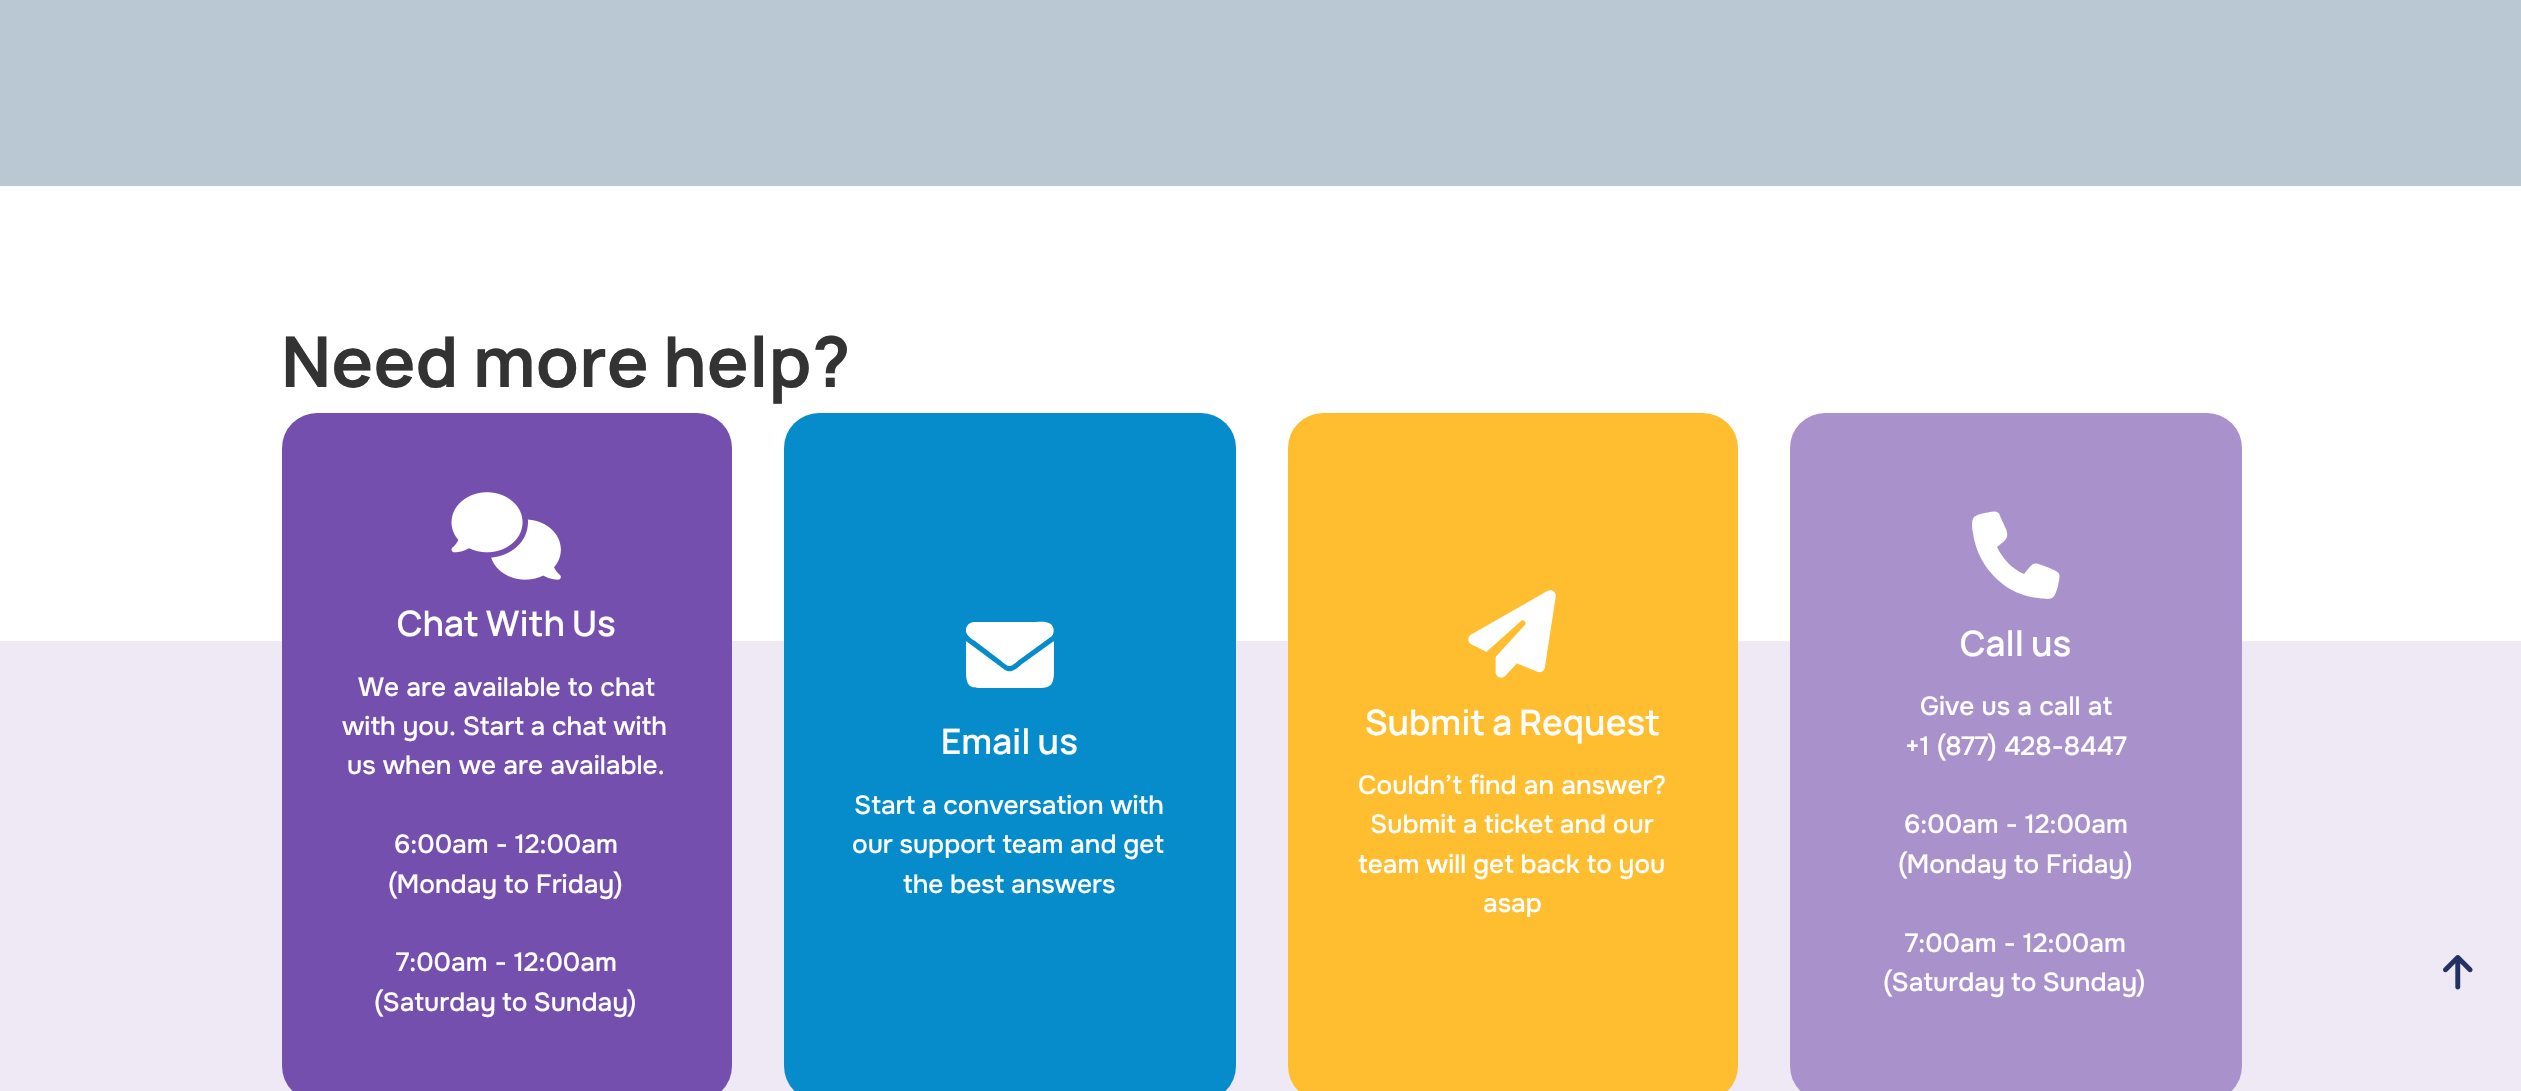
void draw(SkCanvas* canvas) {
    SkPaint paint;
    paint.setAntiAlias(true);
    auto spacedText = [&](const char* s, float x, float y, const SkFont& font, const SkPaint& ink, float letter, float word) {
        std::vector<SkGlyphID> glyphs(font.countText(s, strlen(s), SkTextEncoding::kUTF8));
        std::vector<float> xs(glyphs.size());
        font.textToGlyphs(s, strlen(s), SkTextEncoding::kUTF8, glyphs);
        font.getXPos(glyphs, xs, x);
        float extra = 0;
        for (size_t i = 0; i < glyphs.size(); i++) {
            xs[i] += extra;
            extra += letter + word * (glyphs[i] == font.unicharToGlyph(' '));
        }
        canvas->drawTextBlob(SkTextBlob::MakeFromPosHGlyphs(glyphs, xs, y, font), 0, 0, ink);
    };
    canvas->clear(0xFFFFFFFF);
    paint.setColor(0xFFB9C8D3);
    canvas->drawRect(SkRect::MakeXYWH(0, 0, 2521, 186), paint);
    paint.setColor(0xFFEEE9F5);
    canvas->drawRect(SkRect::MakeXYWH(0, 641, 2521, 450), paint);
    SkFont font1(fontMgr->matchFamilyStyle("Manrope", SkFontStyle::Bold()), 70);
    font1.setSubpixel(true);
    paint.setColor(0xFF333333);
    canvas->drawString("Need more help?", 281, 387, font1, paint);
    paint.setColor(0xFF754FAD);
    canvas->drawRoundRect(SkRect::MakeXYWH(282, 413, 450, 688), 35, 35, paint);
    canvas->drawImageRect(SkImages::DeferredFromEncodedData(SkData::MakeFromFileName("img1.png")), SkRect::MakeXYWH(451, 492, 110, 88), SkSamplingOptions());
    SkFont font2(fontMgr->matchFamilyStyle("Manrope", SkFontStyle(600, SkFontStyle::kNormal_Width, SkFontStyle::kUpright_Slant)), 35);
    font2.setSubpixel(true);
    paint.setColor(0xFFFFFFFF);
    canvas->drawString("Chat With Us", 397, 636, font2, paint);
    SkFont font3(fontMgr->matchFamilyStyle("Onest", SkFontStyle(500, SkFontStyle::kNormal_Width, SkFontStyle::kUpright_Slant)), 26.25f);
    font3.setSubpixel(true);
    canvas->drawString("We are available to chat", 358, 696, font3, paint);
    spacedText("with you. Start a chat with", 342, 735, font3, paint, 0, -0.5f);
    canvas->drawString("us when we are available.", 347, 774, font3, paint);
    canvas->drawString("6:00am - 12:00am", 394, 853, font3, paint);
    spacedText("(Monday to Friday)", 388, 893, font3, paint, 0, -0.5f);
    canvas->drawString("7:00am - 12:00am", 396, 971, font3, paint);
    spacedText("(Saturday to Sunday)", 374, 1011, font3, paint, 0, -1);
    paint.setColor(0xFF068CCA);
    canvas->drawRoundRect(SkRect::MakeXYWH(784, 413, 452, 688), 35, 35, paint);
    paint.setColor(0xFFFFFFFF);
    canvas->drawPath(SkPathBuilder().moveTo(974, 622).cubicTo(972, 622, 969, 623, 967, 626).cubicTo(963, 633, 970, 638, 975, 641).lineTo(1000, 660).cubicTo(1010, 668, 1009, 668, 1019, 660).lineTo(1052, 636).cubicTo(1055, 632, 1054, 625, 1049, 623).cubicTo(1045, 621, 1036, 622, 1033, 622).close().moveTo(966, 641).lineTo(966, 677).lineTo(966, 641).lineTo(966, 671).cubicTo(966, 689, 971, 688, 988, 688).lineTo(1032, 688).cubicTo(1048, 688, 1054, 689, 1054, 671).lineTo(1054, 641).lineTo(1022, 664).cubicTo(1017, 668, 1012, 674, 1005, 670).close().detach(), paint);
    canvas->drawString("Email us", 941, 754, font2, paint);
    spacedText("Start a conversation with", 854, 814, font3, paint, 0, -0.5f);
    spacedText("our support team and get", 852, 853, font3, paint, 0, -0.5f);
    spacedText("the best answers", 903, 893, font3, paint, 0, -0.5f);
    paint.setColor(0xFFFFBE30);
    canvas->drawRoundRect(SkRect::MakeXYWH(1288, 413, 450, 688), 35, 35, paint);
    canvas->drawImageRect(SkImages::DeferredFromEncodedData(SkData::MakeFromFileName("img2.png")), SkRect::MakeXYWH(1468, 590, 88, 88), SkSamplingOptions());
    paint.setColor(0xFFFFFFFF);
    canvas->drawString("Submit a Request", 1365, 735, font2, paint);
    canvas->drawString("Couldn’t find an answer?", 1358, 794, font3, paint);
    spacedText("Submit a ticket and our", 1370, 833, font3, paint, 0, -0.5f);
    spacedText("team will get back to you", 1358, 873, font3, paint, 0, -0.5f);
    canvas->drawString("asap", 1483, 912, font3, paint);
    paint.setColor(0xFFA991CB);
    canvas->drawRoundRect(SkRect::MakeXYWH(1790, 413, 452, 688), 35, 35, paint);
    paint.setColor(0xFFFFFFFF);
    canvas->drawPath(SkPathBuilder().moveTo(2000, 516).cubicTo(1999, 511, 1994, 511, 1990, 512).cubicTo(1985, 513, 1978, 514, 1974, 517).cubicTo(1971, 521, 1972, 528, 1973, 533).cubicTo(1976, 556, 1990, 577, 2010, 589).cubicTo(2019, 594, 2028, 597, 2038, 598).cubicTo(2053, 600, 2054, 600, 2058, 586).cubicTo(2061, 572, 2061, 573, 2047, 567).cubicTo(2032, 561, 2034, 562, 2024, 574).cubicTo(2012, 569, 2003, 559, 1997, 547).cubicTo(2004, 541, 2010, 539, 2006, 529).close().detach(), paint);
    canvas->drawString("Call us", 1960, 656, font2, paint);
    canvas->drawString("Give us a call at", 1920, 715, font3, paint);
    canvas->drawString("+1 (877) 428-8447", 1905, 755, font3, paint);
    canvas->drawString("6:00am - 12:00am", 1904, 833, font3, paint);
    spacedText("(Monday to Friday)", 1898, 873, font3, paint, 0, -0.5f);
    canvas->drawString("7:00am - 12:00am", 1905, 952, font3, paint);
    spacedText("(Saturday to Sunday)", 1883, 991, font3, paint, 0, -1);
    canvas->drawImageRect(SkImages::DeferredFromEncodedData(SkData::MakeFromFileName("img3.png")), SkRect::MakeXYWH(2443, 955, 30, 35), SkSamplingOptions());
}
